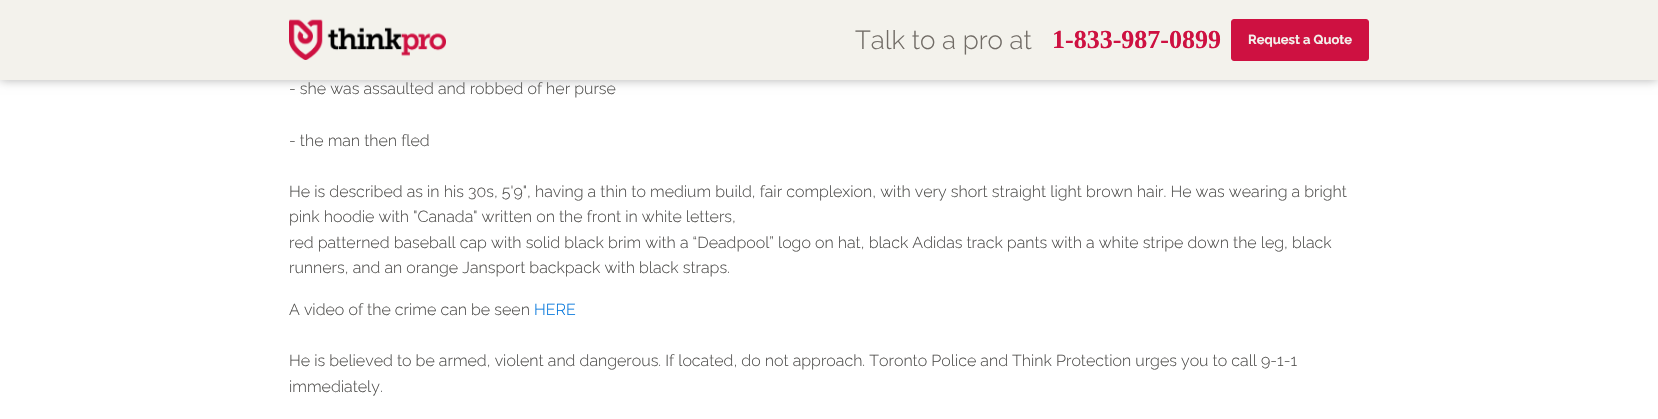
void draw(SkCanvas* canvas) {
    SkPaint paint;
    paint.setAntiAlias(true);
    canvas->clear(0xFFFFFFFF);
    paint.setColor(0x4D000000);
    paint.setMaskFilter(SkMaskFilter::MakeBlur(kNormal_SkBlurStyle, 5));
    canvas->drawRect(SkRect::MakeXYWH(0, 0, 1658, 80), paint);
    paint.setMaskFilter(nullptr);
    paint.setColor(0xFFF3F2EC);
    canvas->drawRect(SkRect::MakeXYWH(0, 0, 1658, 80), paint);
    canvas->drawImageRect(SkImages::DeferredFromEncodedData(SkData::MakeFromFileName("img1.png")), SkRect::MakeXYWH(289, 19, 157, 41), SkSamplingOptions());
    SkFont font1(fontMgr->matchFamilyStyle("Raleway", SkFontStyle(300, SkFontStyle::kNormal_Width, SkFontStyle::kUpright_Slant)), 26);
    font1.setSubpixel(true);
    paint.setColor(0xFF716C66);
    canvas->drawString("Talk to a pro at", 855, 49, font1, paint);
    SkFont font2(fontMgr->matchFamilyStyle("Liberation Serif", SkFontStyle::Bold()), 26);
    font2.setSubpixel(true);
    paint.setColor(0xFFCE1141);
    canvas->drawString("1-833-987-0899", 1052, 48, font2, paint);
    canvas->drawRoundRect(SkRect::MakeXYWH(1231.5f, 19.5f, 137, 41), 2.5f, 2.5f, paint);
    paint.setStyle(SkPaint::kStroke_Style);
    paint.setStrokeWidth(1);
    canvas->drawRoundRect(SkRect::MakeXYWH(1231.5f, 19.5f, 137, 41), 2.5f, 2.5f, paint);
    SkFont font3(fontMgr->matchFamilyStyle("Raleway", SkFontStyle::Bold()), 13);
    font3.setSubpixel(true);
    paint.setStyle(SkPaint::kFill_Style);
    paint.setColor(0xFFF3F2EC);
    canvas->drawString("Request a Quote", 1248, 44, font3, paint);
    SkFont font4(fontMgr->matchFamilyStyle("Raleway", SkFontStyle(300, SkFontStyle::kNormal_Width, SkFontStyle::kUpright_Slant)), 16);
    font4.setSubpixel(true);
    paint.setColor(0xFF504F4D);
    canvas->drawString("- she was assaulted and robbed of her purse", 289, 94, font4, paint);
    canvas->drawString("- the man then fled", 289, 146, font4, paint);
    canvas->drawString("He is described as in his 30s, 5'9\", having a thin to medium build, fair complexion, with very short straight light brown hair. He was wearing a bright", 289, 197, font4, paint);
    canvas->drawString("pink hoodie with \"Canada\" written on the front in white letters,", 289, 222, font4, paint);
    canvas->drawString("red patterned baseball cap with solid black brim with a “Deadpool” logo on hat, black Adidas track pants with a white stripe down the leg, black", 289, 248, font4, paint);
    canvas->drawString("runners, and an orange Jansport backpack with black straps.", 289, 273, font4, paint);
    canvas->drawString("A video of the crime can be seen", 289, 315, font4, paint);
    paint.setColor(0xFF0074DB);
    canvas->drawString("HERE", 534, 315, font4, paint);
    paint.setColor(0xFF504F4D);
    canvas->drawString("He is believed to be armed, violent and dangerous. If located, do not approach. Toronto Police and Think Protection urges you to call 9-1-1", 289, 366, font4, paint);
    canvas->drawString("immediately.", 289, 392, font4, paint);
}
